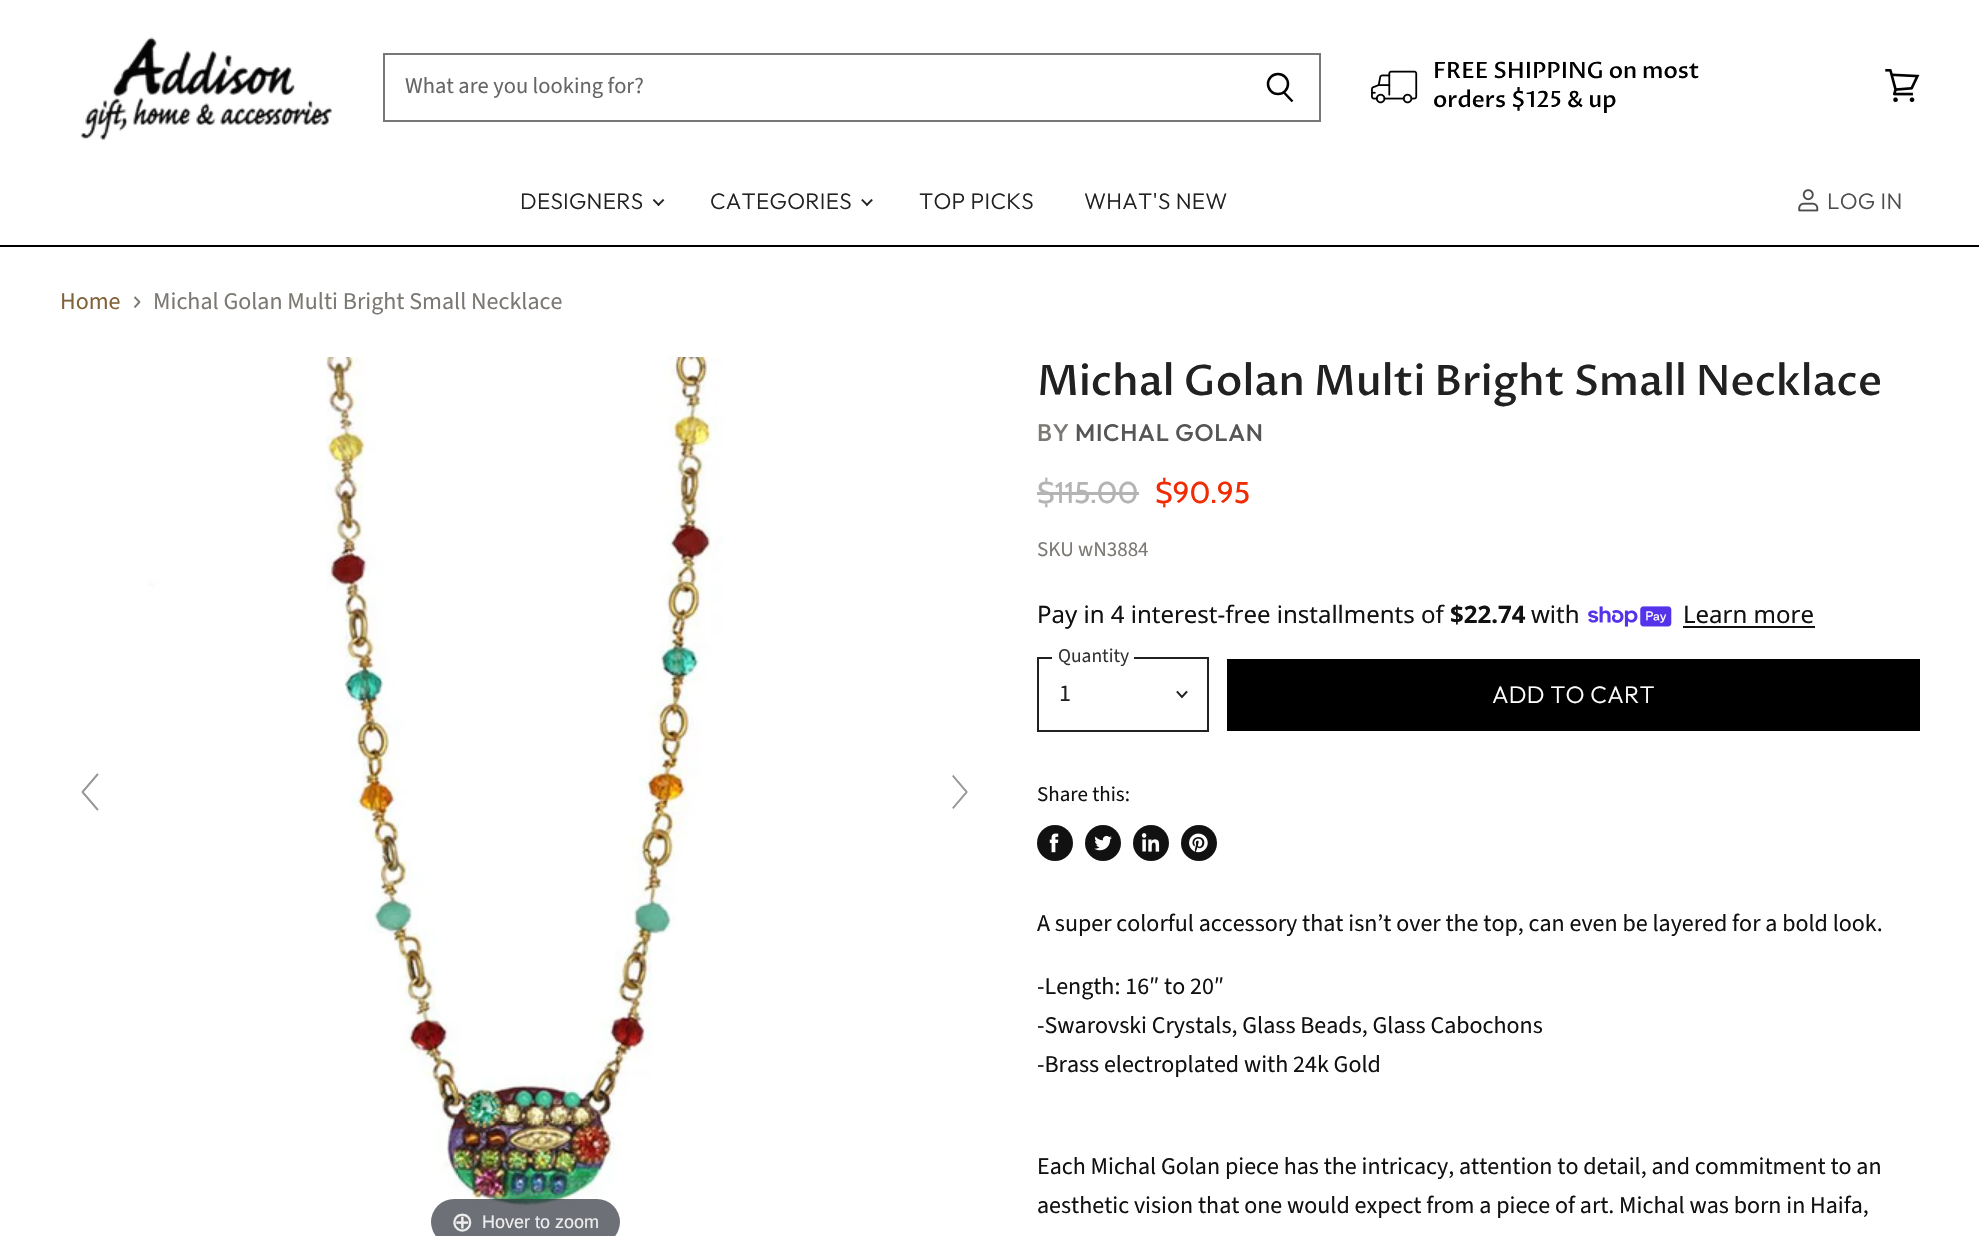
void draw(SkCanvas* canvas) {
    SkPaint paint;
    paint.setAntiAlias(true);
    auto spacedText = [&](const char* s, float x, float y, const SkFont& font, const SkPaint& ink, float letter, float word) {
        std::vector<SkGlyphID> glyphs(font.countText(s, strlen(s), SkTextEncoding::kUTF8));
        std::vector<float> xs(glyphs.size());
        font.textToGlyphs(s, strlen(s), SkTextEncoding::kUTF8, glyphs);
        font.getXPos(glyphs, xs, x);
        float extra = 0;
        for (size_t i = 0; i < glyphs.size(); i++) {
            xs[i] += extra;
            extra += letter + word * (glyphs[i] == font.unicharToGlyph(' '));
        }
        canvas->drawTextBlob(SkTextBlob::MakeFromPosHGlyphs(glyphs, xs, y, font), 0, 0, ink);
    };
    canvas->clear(0xFFFFFFFF);
    paint.setColor(0xFF000000);
    canvas->drawRect(SkRect::MakeXYWH(0, 245, 1979, 2), paint);
    canvas->drawImageRect(SkImages::DeferredFromEncodedData(SkData::MakeFromFileName("img1.png")), SkRect::MakeXYWH(80, 37, 252, 103), SkSamplingOptions());
    paint.setColor(0xFF777777);
    canvas->drawRect(SkRect::MakeXYWH(383, 53, 937, 2), paint);
    canvas->drawRect(SkRect::MakeXYWH(1319, 53, 2, 69), paint);
    canvas->drawRect(SkRect::MakeXYWH(383, 120, 937, 2), paint);
    paint.setStyle(SkPaint::kStroke_Style);
    paint.setStrokeWidth(2.5f);
    paint.setColor(0xFF000000);
    canvas->drawPath(SkPathBuilder().moveTo(1292.5f, 101.5f).lineTo(1284, 92.5f).detach(), paint);
    canvas->drawCircle(1278, 84, 10, paint);
    paint.setStyle(SkPaint::kFill_Style);
    paint.setColor(0xFF777777);
    canvas->drawRect(SkRect::MakeXYWH(383, 53, 2, 69), paint);
    SkFont font1(fontMgr->matchFamilyStyle("Source Sans Pro", SkFontStyle::Normal()), 22.5f);
    font1.setSubpixel(true);
    paint.setColor(0xFF666666);
    canvas->drawString("What are you looking for?", 405, 93, font1, paint);
    canvas->drawImageRect(SkImages::DeferredFromEncodedData(SkData::MakeFromFileName("img2.png")), SkRect::MakeXYWH(1371, 70, 47, 34), SkSamplingOptions());
    SkFont font2(fontMgr->matchFamilyStyle("Proza Libre", SkFontStyle(500, SkFontStyle::kNormal_Width, SkFontStyle::kUpright_Slant)), 22.5f);
    font2.setSubpixel(true);
    paint.setColor(0xFF000000);
    canvas->drawString("FREE SHIPPING on most", 1433, 78, font2, paint);
    canvas->drawString("orders $125 & up", 1433, 107, font2, paint);
    canvas->drawImageRect(SkImages::DeferredFromEncodedData(SkData::MakeFromFileName("img3.png")), SkRect::MakeXYWH(1885, 69, 35, 33), SkSamplingOptions());
    SkFont font3(fontMgr->matchFamilyStyle("Outfit", SkFontStyle(300, SkFontStyle::kNormal_Width, SkFontStyle::kUpright_Slant)), 22.5f);
    font3.setSubpixel(true);
    paint.setColor(0xFF212121);
    spacedText("DESIGNERS", 520, 209, font3, paint, 0.25f, 0);
    canvas->drawImageRect(SkImages::DeferredFromEncodedData(SkData::MakeFromFileName("img4.png")), SkRect::MakeXYWH(653, 199, 12, 7), SkSamplingOptions());
    spacedText("CATEGORIES", 710, 209, font3, paint, 0.25f, 0);
    canvas->drawImageRect(SkImages::DeferredFromEncodedData(SkData::MakeFromFileName("img5.png")), SkRect::MakeXYWH(861, 199, 12, 7), SkSamplingOptions());
    spacedText("TOP PICKS", 919, 209, font3, paint, 0.25f, 0);
    spacedText("WHAT'S NEW", 1084, 209, font3, paint, 0.25f, 0);
    canvas->drawImageRect(SkImages::DeferredFromEncodedData(SkData::MakeFromFileName("img6.png")), SkRect::MakeXYWH(1798, 189, 21, 23), SkSamplingOptions());
    paint.setColor(0xFF4D4D4D);
    spacedText("LOG IN", 1827, 209, font3, paint, 0.25f, 0);
    SkFont font4(fontMgr->matchFamilyStyle("Source Sans Pro", SkFontStyle::Normal()), 24);
    font4.setSubpixel(true);
    paint.setColor(0xFF816339);
    canvas->drawString("Home", 60, 309, font4, paint);
    canvas->save();
    canvas->clipPath(SkPathBuilder().moveTo(133, 308).lineTo(133, 296).lineTo(140.5f, 296).lineTo(140.5f, 308).close().detach(), true);
    paint.setStyle(SkPaint::kStroke_Style);
    paint.setStrokeWidth(1.9f);
    paint.setColor(0xFF7C7873);
    canvas->drawPath(SkPathBuilder().moveTo(134.5f, 307.5f).lineTo(139.5f, 302).lineTo(134.5f, 297).detach(), paint);
    canvas->restore();
    paint.setStyle(SkPaint::kFill_Style);
    canvas->drawString("Michal Golan Multi Bright Small Necklace", 153, 309, font4, paint);
    SkFont font5(fontMgr->matchFamilyStyle("Proza Libre", SkFontStyle(500, SkFontStyle::kNormal_Width, SkFontStyle::kUpright_Slant)), 42);
    font5.setSubpixel(true);
    paint.setColor(0xFF212121);
    canvas->drawString("Michal Golan Multi Bright Small Necklace", 1037, 395, font5, paint);
    SkFont font6(fontMgr->matchFamilyStyle("Outfit", SkFontStyle(500, SkFontStyle::kNormal_Width, SkFontStyle::kUpright_Slant)), 24);
    font6.setSubpixel(true);
    paint.setColor(0xFF7C7873);
    spacedText("BY", 1037, 441, font6, paint, 0.75f, 0);
    paint.setColor(0xFF555555);
    spacedText("MICHAL GOLAN", 1075, 441, font6, paint, 0.75f, 0);
    SkFont font7(fontMgr->matchFamilyStyle("Cabin", SkFontStyle::Normal()), 30);
    font7.setSubpixel(true);
    paint.setColor(0xFFB4B4B4);
    canvas->drawString("$115.00", 1037, 503, font7, paint);
    canvas->drawRect(SkRect::MakeXYWH(1037, 492, 102, 3), paint);
    paint.setColor(0xFFF02C04);
    canvas->drawString("$90.95", 1155, 503, font7, paint);
    SkFont font8(fontMgr->matchFamilyStyle("Source Sans Pro", SkFontStyle::Normal()), 21);
    font8.setSubpixel(true);
    paint.setColor(0xFF7C7873);
    canvas->drawString("SKU wN3884", 1037, 556, font8, paint);
    SkFont font9(fontMgr->matchFamilyStyle("Noto Sans", SkFontStyle::Normal()), 24);
    font9.setSubpixel(true);
    paint.setColor(0xFF111111);
    canvas->drawString("Pay in 4 interest-free installments of", 1037, 623, font9, paint);
    SkFont font10(fontMgr->matchFamilyStyle("Noto Sans", SkFontStyle::Bold()), 24);
    font10.setSubpixel(true);
    canvas->drawString("$22.74", 1450, 623, font10, paint);
    canvas->drawString("with", 1531, 623, font9, paint);
    canvas->drawImageRect(SkImages::DeferredFromEncodedData(SkData::MakeFromFileName("img7.png")), SkRect::MakeXYWH(1588, 606, 84, 21), SkSamplingOptions());
    canvas->drawString("Learn more", 1683, 623, font9, paint);
    canvas->drawRect(SkRect::MakeXYWH(1683, 626, 132, 2), paint);
    paint.setStyle(SkPaint::kStroke_Style);
    paint.setStrokeWidth(2);
    paint.setColor(0xFF212121);
    canvas->drawRect(SkRect::MakeXYWH(1038, 658, 170, 73), paint);
    paint.setStyle(SkPaint::kFill_Style);
    paint.setColor(0xFFFFFFFF);
    canvas->drawRect(SkRect::MakeXYWH(1052, 657, 82, 2), paint);
    SkFont font11(fontMgr->matchFamilyStyle("Source Sans Pro", SkFontStyle::Normal()), 19.5f);
    font11.setSubpixel(true);
    paint.setColor(0xFF333333);
    canvas->drawString("Quantity", 1058, 662, font11, paint);
    paint.setColor(0xFF212121);
    canvas->drawString("1", 1059, 701, font4, paint);
    paint.setStyle(SkPaint::kStroke_Style);
    paint.setStrokeWidth(1.9f);
    paint.setStrokeCap(SkPaint::kSquare_Cap);
    canvas->drawPath(SkPathBuilder().moveTo(1182, 697).lineTo(1186.5f, 692).moveTo(1182, 697).lineTo(1177.5f, 692).detach(), paint);
    paint.setStyle(SkPaint::kFill_Style);
    paint.setColor(0xFF000000);
    canvas->drawRect(SkRect::MakeXYWH(1227, 659, 693, 72), paint);
    SkFont font12(fontMgr->matchFamilyStyle("Outfit", SkFontStyle(300, SkFontStyle::kNormal_Width, SkFontStyle::kUpright_Slant)), 24);
    font12.setSubpixel(true);
    paint.setColor(0xFFFFFFFF);
    spacedText("ADD TO CART", 1492, 703, font12, paint, 0.25f, 0);
    paint.setColor(0xFF111111);
    canvas->drawString("Share this:", 1037, 801, font8, paint);
    canvas->drawCircle(1055, 843, 18, paint);
    canvas->drawImageRect(SkImages::DeferredFromEncodedData(SkData::MakeFromFileName("img8.png")), SkRect::MakeXYWH(1049, 833, 10, 20), SkSamplingOptions());
    canvas->drawCircle(1103, 843, 18, paint);
    canvas->drawImageRect(SkImages::DeferredFromEncodedData(SkData::MakeFromFileName("img9.png")), SkRect::MakeXYWH(1094, 835, 18, 16), SkSamplingOptions());
    canvas->drawCircle(1151, 843, 18, paint);
    canvas->drawImageRect(SkImages::DeferredFromEncodedData(SkData::MakeFromFileName("img10.png")), SkRect::MakeXYWH(1141, 833, 19, 19), SkSamplingOptions());
    canvas->drawCircle(1199, 843, 18, paint);
    canvas->drawImageRect(SkImages::DeferredFromEncodedData(SkData::MakeFromFileName("img11.png")), SkRect::MakeXYWH(1189, 833, 19, 20), SkSamplingOptions());
    canvas->drawString("A super colorful accessory that isn’t over the top, can even be layered for a bold look.", 1037, 931, font4, paint);
    canvas->drawString("-Length: 16″ to 20″", 1037, 994, font4, paint);
    canvas->drawString("-Swarovski Crystals, Glass Beads, Glass Cabochons", 1037, 1033, font4, paint);
    canvas->drawString("-Brass electroplated with 24k Gold", 1037, 1072, font4, paint);
    canvas->drawString("Each Michal Golan piece has the intricacy, attention to detail, and commitment to an", 1037, 1174, font4, paint);
    canvas->drawString("aesthetic vision that one would expect from a piece of art. Michal was born in Haifa,", 1037, 1213, font4, paint);
    canvas->drawImageRect(SkImages::DeferredFromEncodedData(SkData::MakeFromFileName("img12.png")), SkRect::MakeXYWH(81, 773, 18, 38), SkSamplingOptions());
    canvas->drawImageRect(SkImages::DeferredFromEncodedData(SkData::MakeFromFileName("img13.png")), SkRect::MakeXYWH(952, 775, 16, 34), SkSamplingOptions());
    canvas->drawImageRect(SkImages::DeferredFromEncodedData(SkData::MakeFromFileName("img14.png")), SkRect::MakeXYWH(148, 357, 575, 853), SkSamplingOptions());
    paint.setColor(0xB331333D);
    canvas->drawRoundRect(SkRect::MakeXYWH(431, 1199, 189, 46), 23, 23, paint);
    SkFont font13(fontMgr->matchFamilyStyle("DejaVu Sans", SkFontStyle::Normal()), 27);
    font13.setSubpixel(true);
    paint.setColor(0xFFEEEEEE);
    canvas->drawString("⊕", 451, 1231, font13, paint);
    SkFont font14(fontMgr->matchFamilyStyle("Liberation Sans", SkFontStyle::Normal()), 18);
    font14.setSubpixel(true);
    canvas->drawString("Hover to zoom", 482, 1228, font14, paint);
}
